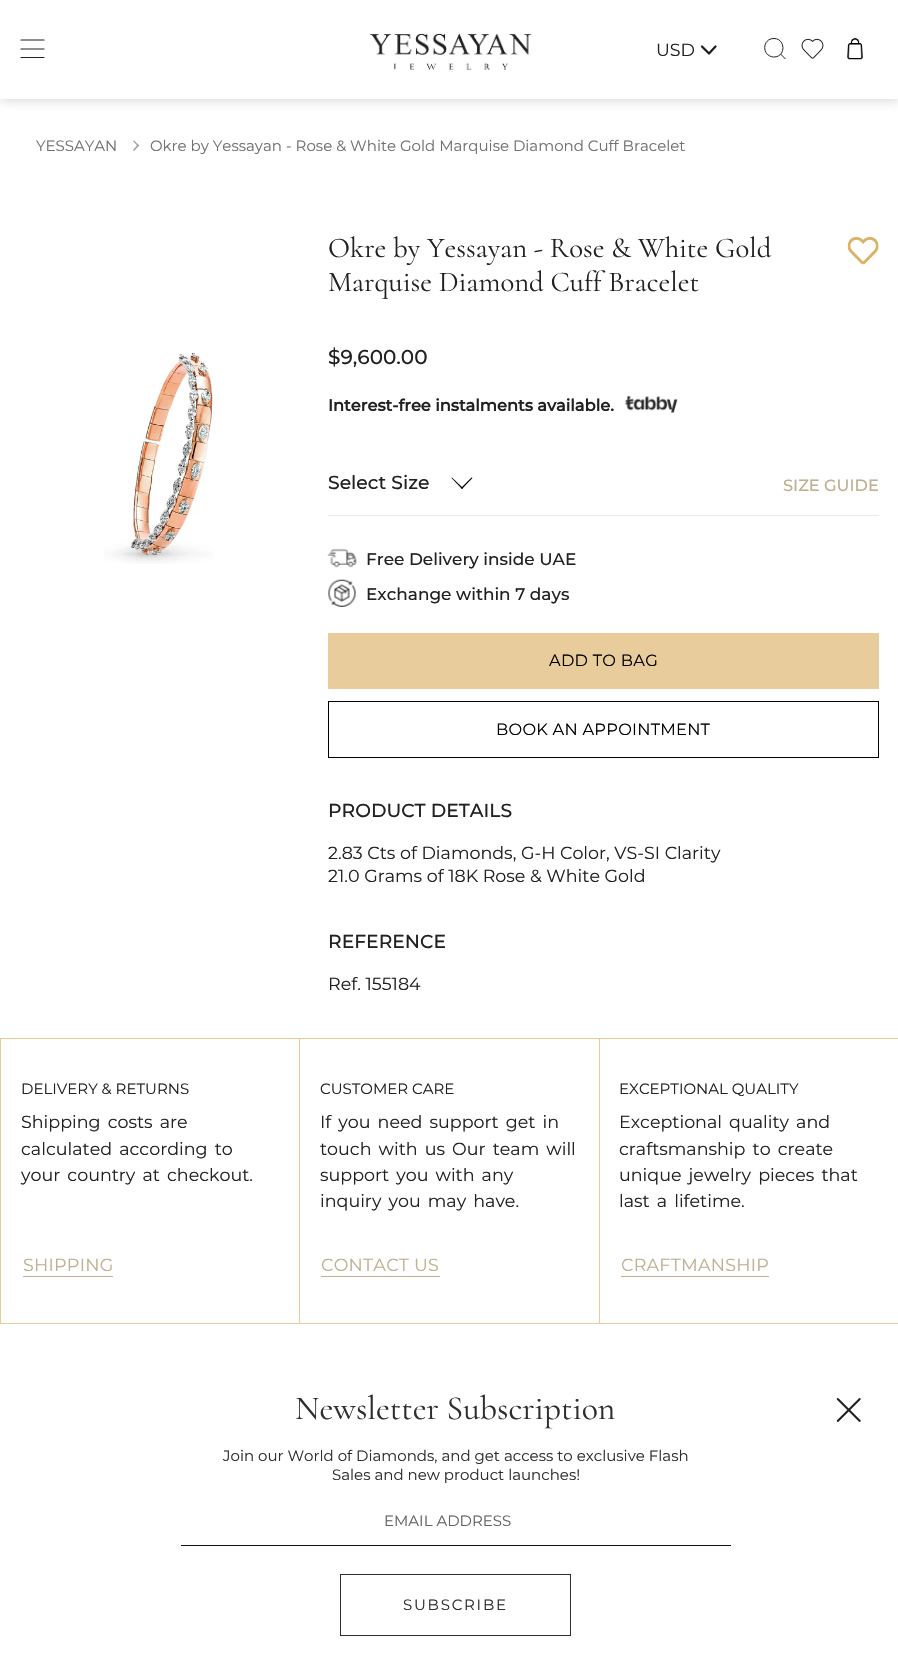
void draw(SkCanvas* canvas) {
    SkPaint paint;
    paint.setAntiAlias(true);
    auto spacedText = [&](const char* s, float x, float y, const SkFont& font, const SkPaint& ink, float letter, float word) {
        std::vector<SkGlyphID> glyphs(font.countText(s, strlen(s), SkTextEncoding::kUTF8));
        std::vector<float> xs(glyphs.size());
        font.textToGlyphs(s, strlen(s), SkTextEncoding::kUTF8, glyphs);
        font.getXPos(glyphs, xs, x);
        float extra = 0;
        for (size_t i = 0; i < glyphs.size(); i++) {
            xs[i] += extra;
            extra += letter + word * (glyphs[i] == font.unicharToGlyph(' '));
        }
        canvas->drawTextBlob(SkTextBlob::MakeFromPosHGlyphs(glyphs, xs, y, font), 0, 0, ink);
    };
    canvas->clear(0xFFFFFFFF);
    paint.setColor(0x66818181);
    paint.setMaskFilter(SkMaskFilter::MakeBlur(kNormal_SkBlurStyle, 6));
    canvas->drawRect(SkRect::MakeXYWH(0, 0, 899, 99), paint);
    paint.setMaskFilter(nullptr);
    paint.setColor(0xFFFFFFFF);
    canvas->drawRect(SkRect::MakeXYWH(0, 0, 898, 99), paint);
    paint.setStyle(SkPaint::kStroke_Style);
    paint.setStrokeWidth(1.2f);
    paint.setStrokeCap(SkPaint::kRound_Cap);
    paint.setStrokeJoin(SkPaint::kRound_Join);
    paint.setColor(0xFF212121);
    canvas->drawPath(SkPathBuilder().moveTo(21, 40).lineTo(44, 40).moveTo(21, 49).lineTo(44, 49).moveTo(21, 57.5f).lineTo(44, 57.5f).detach(), paint);
    canvas->drawImageRect(SkImages::DeferredFromEncodedData(SkData::MakeFromFileName("img1.png")), SkRect::MakeXYWH(370, 33, 162, 37), SkSamplingOptions());
    SkFont font1(fontMgr->matchFamilyStyle("Montserrat", SkFontStyle::Normal()), 17.5f);
    font1.setSubpixel(true);
    paint.setStyle(SkPaint::kFill_Style);
    canvas->drawString("USD", 656, 56, font1, paint);
    paint.setStyle(SkPaint::kStroke_Style);
    paint.setStrokeWidth(2.3f);
    paint.setColor(0xFF1E1E1E);
    canvas->drawPath(SkPathBuilder().moveTo(702, 46.5f).lineTo(709, 53.5f).lineTo(715.5f, 46.5f).detach(), paint);
    canvas->drawImageRect(SkImages::DeferredFromEncodedData(SkData::MakeFromFileName("img2.png")), SkRect::MakeXYWH(847, 38, 16, 22), SkSamplingOptions());
    paint.setStrokeWidth(1);
    paint.setStrokeCap(SkPaint::kButt_Cap);
    paint.setStrokeJoin(SkPaint::kMiter_Join);
    paint.setColor(0xFF212121);
    canvas->drawPath(SkPathBuilder().moveTo(774, 38.5f).cubicTo(786, 38.5f, 786, 57.5f, 773.5f, 57).cubicTo(761.5f, 56, 762, 38.5f, 774, 38.5f).close().moveTo(780.5f, 54).lineTo(785.5f, 59).detach(), paint);
    canvas->drawImageRect(SkImages::DeferredFromEncodedData(SkData::MakeFromFileName("img3.png")), SkRect::MakeXYWH(801, 38, 23, 21), SkSamplingOptions());
    SkFont font2(fontMgr->matchFamilyStyle("Montserrat", SkFontStyle::Normal()), 15);
    font2.setSubpixel(true);
    paint.setStyle(SkPaint::kFill_Style);
    paint.setColor(0xFF707070);
    canvas->drawString("YESSAYAN", 36, 151, font2, paint);
    paint.setColor(0xFF999999);
    canvas->drawPath(SkPathBuilder().moveTo(134, 140.5f).lineTo(139, 145.5f).lineTo(138, 146.5f).lineTo(133, 141).close().detach(), paint);
    canvas->drawPath(SkPathBuilder().moveTo(138, 144.5f).lineTo(139, 145.5f).lineTo(134, 151).lineTo(133, 150).close().detach(), paint);
    paint.setColor(0xFF707070);
    canvas->drawString("Okre by Yessayan - Rose & White Gold Marquise Diamond Cuff Bracelet", 150, 151, font2, paint);
    canvas->drawImageRect(SkImages::DeferredFromEncodedData(SkData::MakeFromFileName("img4.png")), SkRect::MakeXYWH(104, 351, 110, 213), SkSamplingOptions());
    SkFont font3(fontMgr->matchFamilyStyle("Cormorant", SkFontStyle::Normal()), 28.75f);
    font3.setSubpixel(true);
    paint.setColor(0xFF212121);
    canvas->drawString("Okre by Yessayan - Rose & White Gold", 328, 257, font3, paint);
    canvas->drawString("Marquise Diamond Cuff Bracelet", 328, 291, font3, paint);
    SkFont font4(fontMgr->matchFamilyStyle("Montserrat", SkFontStyle(500, SkFontStyle::kNormal_Width, SkFontStyle::kUpright_Slant)), 20);
    font4.setSubpixel(true);
    canvas->drawString("$9,600.00", 328, 364, font4, paint);
    SkFont font5(fontMgr->matchFamilyStyle("Montserrat", SkFontStyle::Bold()), 16.25f);
    font5.setSubpixel(true);
    canvas->drawString("Interest-free instalments available.", 328, 411, font5, paint);
    canvas->drawImageRect(SkImages::DeferredFromEncodedData(SkData::MakeFromFileName("img5.png")), SkRect::MakeXYWH(625, 395, 53, 18), SkSamplingOptions());
    paint.setColor(0xFFEEE8E4);
    canvas->drawRect(SkRect::MakeXYWH(328, 515, 551, 1), paint);
    SkFont font6(fontMgr->matchFamilyStyle("Montserrat", SkFontStyle(500, SkFontStyle::kNormal_Width, SkFontStyle::kUpright_Slant)), 18.75f);
    font6.setSubpixel(true);
    paint.setColor(0xFF212121);
    canvas->drawString("Select Size", 328, 489, font6, paint);
    paint.setColor(0xFF000000);
    canvas->drawPath(SkPathBuilder().moveTo(472.5f, 478).lineTo(462, 489).lineTo(461, 488).lineTo(471.5f, 477.5f).close().detach(), paint);
    canvas->drawPath(SkPathBuilder().moveTo(463, 488).lineTo(462, 489).lineTo(451.5f, 478).lineTo(452, 477.5f).close().detach(), paint);
    SkFont font7(fontMgr->matchFamilyStyle("Montserrat", SkFontStyle(500, SkFontStyle::kNormal_Width, SkFontStyle::kUpright_Slant)), 16.25f);
    font7.setSubpixel(true);
    paint.setColor(0xFFC0AF90);
    canvas->drawString("SIZE GUIDE", 783, 491, font7, paint);
    canvas->drawImageRect(SkImages::DeferredFromEncodedData(SkData::MakeFromFileName("img6.png")), SkRect::MakeXYWH(327, 548, 30, 20), SkSamplingOptions());
    SkFont font8(fontMgr->matchFamilyStyle("Montserrat", SkFontStyle(500, SkFontStyle::kNormal_Width, SkFontStyle::kUpright_Slant)), 16.9f);
    font8.setSubpixel(true);
    paint.setColor(0xFF212121);
    canvas->drawString("Free Delivery inside UAE", 366, 565, font8, paint);
    canvas->drawImageRect(SkImages::DeferredFromEncodedData(SkData::MakeFromFileName("img7.png")), SkRect::MakeXYWH(328, 579, 28, 28), SkSamplingOptions());
    canvas->drawString("Exchange within 7 days", 366, 600, font8, paint);
    canvas->drawImageRect(SkImages::DeferredFromEncodedData(SkData::MakeFromFileName("img8.png")), SkRect::MakeXYWH(847, 237, 32, 28), SkSamplingOptions());
    paint.setColor(0xFFE8CC9B);
    canvas->drawRect(SkRect::MakeXYWH(328, 633, 551, 56), paint);
    SkFont font9(fontMgr->matchFamilyStyle("Montserrat", SkFontStyle::Normal()), 16.25f);
    font9.setSubpixel(true);
    paint.setColor(0xFF000000);
    spacedText("ADD TO BAG", 549, 666, font9, paint, 0.25f, 0);
    paint.setStyle(SkPaint::kStroke_Style);
    canvas->drawRect(SkRect::MakeXYWH(328.5f, 701.5f, 550, 56), paint);
    paint.setStyle(SkPaint::kFill_Style);
    spacedText("BOOK AN APPOINTMENT", 496, 735, font9, paint, 0.25f, 0);
    paint.setColor(0xFF212121);
    canvas->drawString("PRODUCT DETAILS", 328, 817, font6, paint);
    canvas->drawString("2.83 Cts of Diamonds, G-H Color, VS-SI Clarity", 328, 859, font1, paint);
    canvas->drawString("21.0 Grams of 18K Rose & White Gold", 328, 882, font1, paint);
    canvas->drawString("REFERENCE", 328, 948, font6, paint);
    canvas->drawString("Ref. 155184", 328, 990, font1, paint);
    paint.setStyle(SkPaint::kStroke_Style);
    paint.setColor(0xFFE7CC9B);
    canvas->drawRect(SkRect::MakeXYWH(0.5f, 1038.5f, 299, 285), paint);
    paint.setStyle(SkPaint::kFill_Style);
    paint.setColor(0xFF212121);
    canvas->drawString("DELIVERY & RETURNS", 21, 1094, font2, paint);
    spacedText("Shipping costs are", 21, 1128, font1, paint, 0, 2.5f);
    spacedText("calculated according to", 21, 1155, font1, paint, 0, 2.5f);
    spacedText("your country at checkout.", 21, 1181, font1, paint, 0, 2.5f);
    paint.setColor(0xFFC0AF90);
    spacedText("SHIPPING", 23, 1271, font1, paint, 0.25f, 0);
    canvas->drawRect(SkRect::MakeXYWH(23, 1276, 90, 1), paint);
    paint.setColor(0xFFE7CC9B);
    canvas->drawRect(SkRect::MakeXYWH(300, 1038, 598, 1), paint);
    canvas->drawRect(SkRect::MakeXYWH(599, 1038, 1, 286), paint);
    canvas->drawRect(SkRect::MakeXYWH(300, 1323, 598, 1), paint);
    paint.setColor(0xFF212121);
    canvas->drawString("CUSTOMER CARE", 320, 1094, font2, paint);
    spacedText("If you need support get in", 320, 1128, font1, paint, 0, 2.5f);
    spacedText("touch with us Our team will", 320, 1155, font1, paint, 0, 2.5f);
    spacedText("support you with any", 320, 1181, font1, paint, 0, 2.5f);
    spacedText("inquiry you may have.", 320, 1207, font1, paint, 0, 2.5f);
    paint.setColor(0xFFC0AF90);
    spacedText("CONTACT US", 321, 1271, font1, paint, 0.25f, 0);
    canvas->drawRect(SkRect::MakeXYWH(321, 1276, 119, 1), paint);
    paint.setColor(0xFF212121);
    canvas->drawString("EXCEPTIONAL QUALITY", 619, 1094, font2, paint);
    spacedText("Exceptional quality and", 619, 1128, font1, paint, 0, 2.5f);
    spacedText("craftsmanship to create", 619, 1155, font1, paint, 0, 2.5f);
    spacedText("unique jewelry pieces that", 619, 1181, font1, paint, 0, 2.5f);
    spacedText("last a lifetime.", 619, 1207, font1, paint, 0, 2.5f);
    paint.setColor(0xFFC0AF90);
    spacedText("CRAFTMANSHIP", 621, 1271, font1, paint, 0.25f, 0);
    canvas->drawRect(SkRect::MakeXYWH(621, 1276, 148, 1), paint);
    SkFont font10(fontMgr->matchFamilyStyle("Cormorant", SkFontStyle::Normal()), 33.75f);
    font10.setSubpixel(true);
    paint.setColor(0xFF2E2E2E);
    canvas->drawString("Newsletter Subscription", 295, 1419, font10, paint);
    canvas->drawString("Join our World of Diamonds, and get access to exclusive Flash", 223, 1461, font2, paint);
    canvas->drawString("Sales and new product launches!", 332, 1480, font2, paint);
    paint.setColor(0xFF0F0F0F);
    canvas->drawRect(SkRect::MakeXYWH(181, 1545, 550, 1), paint);
    paint.setColor(0xFF626262);
    canvas->drawString("EMAIL ADDRESS", 384, 1526, font2, paint);
    paint.setStyle(SkPaint::kStroke_Style);
    paint.setColor(0xFF2E2E2E);
    canvas->drawRect(SkRect::MakeXYWH(340.5f, 1574.5f, 230, 61), paint);
    paint.setStyle(SkPaint::kFill_Style);
    spacedText("SUBSCRIBE", 403, 1610, font2, paint, 1.75f, 0);
    canvas->drawImageRect(SkImages::DeferredFromEncodedData(SkData::MakeFromFileName("img9.png")), SkRect::MakeXYWH(836, 1398, 25, 24), SkSamplingOptions());
}
